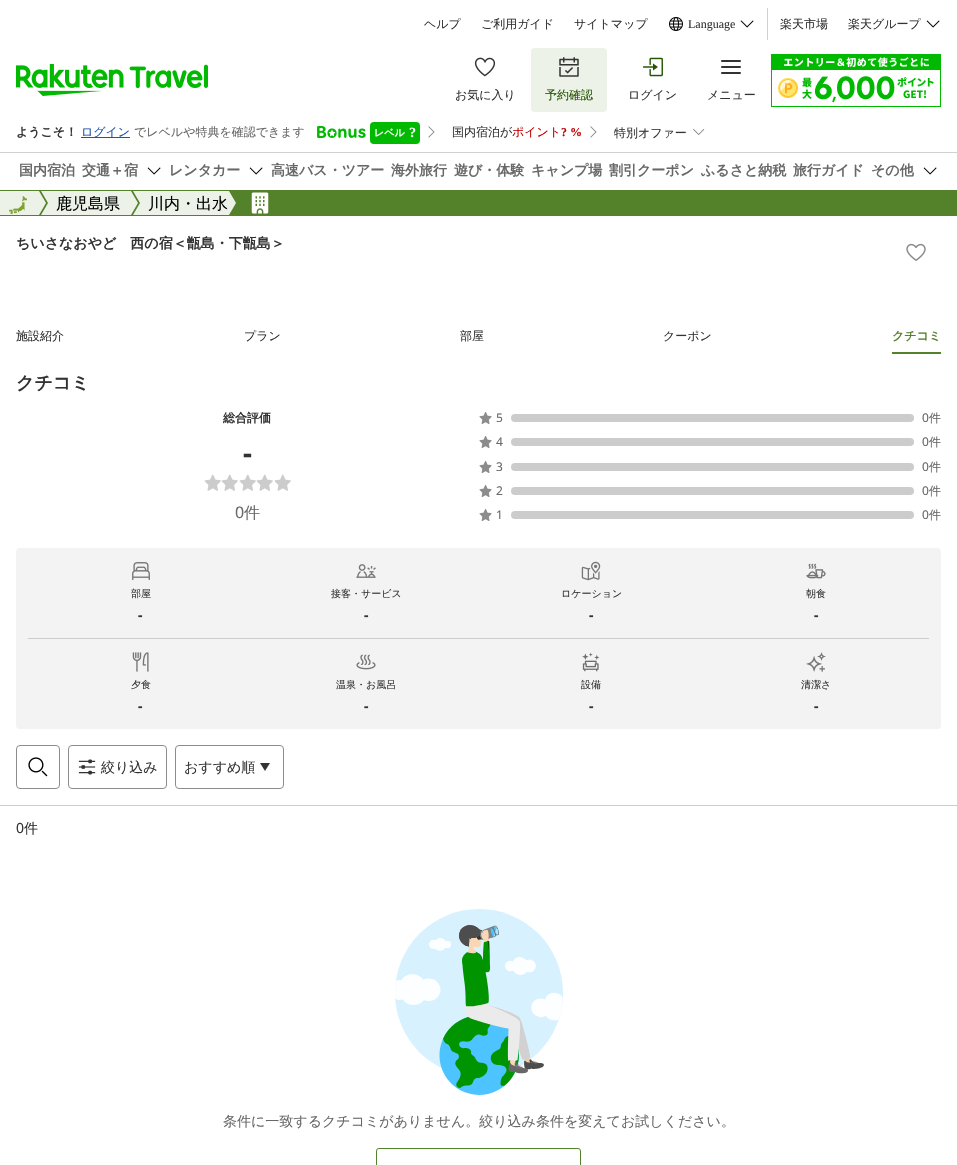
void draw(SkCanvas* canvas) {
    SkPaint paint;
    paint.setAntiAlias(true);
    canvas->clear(0xFFFFFFFF);
    SkFont font1(fontMgr->matchFamilyStyle("WenQuanYi Zen Hei", SkFontStyle(500, SkFontStyle::kNormal_Width, SkFontStyle::kUpright_Slant)), 12);
    font1.setSubpixel(true);
    paint.setColor(0xFF333333);
    canvas->drawString("ヘルプ", 424, 28, font1, paint);
    canvas->drawString("ご利用ガイド", 481, 28, font1, paint);
    canvas->drawString("サイトマップ", 574, 28, font1, paint);
    canvas->drawImageRect(SkImages::DeferredFromEncodedData(SkData::MakeFromFileName("img1.png")), SkRect::MakeXYWH(669, 17, 14, 14), SkSamplingOptions());
    SkFont font2(fontMgr->matchFamilyStyle("Liberation Serif", SkFontStyle::Normal()), 12);
    font2.setSubpixel(true);
    canvas->drawString("Language", 688, 28, font2, paint);
    canvas->drawImageRect(SkImages::DeferredFromEncodedData(SkData::MakeFromFileName("img2.png")), SkRect::MakeXYWH(740, 20, 14, 8), SkSamplingOptions());
    paint.setColor(0xFFD1D1D1);
    canvas->drawRect(SkRect::MakeXYWH(767, 8, 1, 32), paint);
    paint.setColor(0xFF333333);
    canvas->drawString("楽天市場", 780, 28, font1, paint);
    canvas->drawString("楽天グループ", 848, 28, font1, paint);
    canvas->drawImageRect(SkImages::DeferredFromEncodedData(SkData::MakeFromFileName("img2.png")), SkRect::MakeXYWH(926, 20, 14, 8), SkSamplingOptions());
    canvas->drawImageRect(SkImages::DeferredFromEncodedData(SkData::MakeFromFileName("img3.png")), SkRect::MakeXYWH(16, 64, 192, 32), SkSamplingOptions());
    canvas->drawImageRect(SkImages::DeferredFromEncodedData(SkData::MakeFromFileName("img4.png")), SkRect::MakeXYWH(474, 57, 22, 20), SkSamplingOptions());
    canvas->drawString("お気に入り", 455, 99, font1, paint);
    paint.setColor(0xFFEDF2E9);
    canvas->drawRoundRect(SkRect::MakeXYWH(531, 48, 76, 64), 4, 4, paint);
    canvas->drawImageRect(SkImages::DeferredFromEncodedData(SkData::MakeFromFileName("img5.png")), SkRect::MakeXYWH(559, 57, 20, 20), SkSamplingOptions());
    paint.setColor(0xFF255500);
    canvas->drawString("予約確認", 545, 99, font1, paint);
    canvas->drawImageRect(SkImages::DeferredFromEncodedData(SkData::MakeFromFileName("img6.png")), SkRect::MakeXYWH(643, 57, 20, 20), SkSamplingOptions());
    paint.setColor(0xFF333333);
    canvas->drawString("ログイン", 628, 99, font1, paint);
    canvas->drawImageRect(SkImages::DeferredFromEncodedData(SkData::MakeFromFileName("img7.png")), SkRect::MakeXYWH(721, 60, 20, 14), SkSamplingOptions());
    canvas->drawString("メニュー", 707, 99, font1, paint);
    canvas->drawImageRect(SkImages::DeferredFromEncodedData(SkData::MakeFromFileName("img8.png")), SkRect::MakeXYWH(771, 54, 170, 53), SkSamplingOptions());
    SkFont font3(fontMgr->matchFamilyStyle("WenQuanYi Zen Hei", SkFontStyle::Bold()), 12);
    font3.setSubpixel(true);
    canvas->drawString("ようこそ！", 16, 136, font3, paint);
    paint.setColor(0xFF1D54A7);
    canvas->drawRect(SkRect::MakeXYWH(81, 137, 49, 1), paint);
    canvas->drawString("ログイン", 81, 136, font1, paint);
    paint.setColor(0xFF686868);
    canvas->drawString("でレベルや特典を確認できます", 134, 136, font1, paint);
    canvas->drawImageRect(SkImages::DeferredFromEncodedData(SkData::MakeFromFileName("img9.png")), SkRect::MakeXYWH(317, 126, 49, 12), SkSamplingOptions());
    paint.setColor(0xFF00B900);
    canvas->drawRoundRect(SkRect::MakeXYWH(370, 122, 50, 22), 4, 4, paint);
    SkFont font4(fontMgr->matchFamilyStyle("WenQuanYi Zen Hei", SkFontStyle::Bold()), 10);
    font4.setSubpixel(true);
    paint.setColor(0xFFFFFFFF);
    canvas->drawString("レベル", 374, 136, font4, paint);
    SkFont font5(fontMgr->matchFamilyStyle("Liberation Serif", SkFontStyle::Bold()), 14);
    font5.setSubpixel(true);
    canvas->drawString("?", 409, 137, font5, paint);
    canvas->drawImageRect(SkImages::DeferredFromEncodedData(SkData::MakeFromFileName("img10.png")), SkRect::MakeXYWH(428, 126, 7, 12), SkSamplingOptions());
    paint.setColor(0xFF333333);
    canvas->drawString("国内宿泊が", 452, 136, font1, paint);
    paint.setColor(0xFFBF0000);
    canvas->drawString("ポイント", 512, 136, font1, paint);
    SkFont font6(fontMgr->matchFamilyStyle("Liberation Serif", SkFontStyle::Bold()), 12);
    font6.setSubpixel(true);
    canvas->drawString("? %", 561, 136, font6, paint);
    canvas->drawImageRect(SkImages::DeferredFromEncodedData(SkData::MakeFromFileName("img10.png")), SkRect::MakeXYWH(590, 126, 7, 12), SkSamplingOptions());
    paint.setColor(0xFF333333);
    canvas->drawString("特別オファー", 614, 137, font1, paint);
    canvas->drawImageRect(SkImages::DeferredFromEncodedData(SkData::MakeFromFileName("img11.png")), SkRect::MakeXYWH(693, 129, 12, 6), SkSamplingOptions());
    paint.setColor(0xFFD1D1D1);
    canvas->drawRect(SkRect::MakeXYWH(0, 152, 957, 1), paint);
    SkFont font7(fontMgr->matchFamilyStyle("WenQuanYi Zen Hei", SkFontStyle::Bold()), 14);
    font7.setSubpixel(true);
    paint.setColor(0xFF686868);
    canvas->drawString("国内宿泊", 19, 175, font7, paint);
    canvas->drawString("交通＋宿", 82, 175, font7, paint);
    canvas->drawImageRect(SkImages::DeferredFromEncodedData(SkData::MakeFromFileName("img2.png")), SkRect::MakeXYWH(147, 167, 14, 8), SkSamplingOptions());
    canvas->drawString("レンタカー", 169, 175, font7, paint);
    canvas->drawImageRect(SkImages::DeferredFromEncodedData(SkData::MakeFromFileName("img2.png")), SkRect::MakeXYWH(249, 167, 14, 8), SkSamplingOptions());
    canvas->drawString("高速バス・ツアー", 271, 175, font7, paint);
    canvas->drawString("海外旅行", 391, 175, font7, paint);
    canvas->drawString("遊び・体験", 454, 175, font7, paint);
    canvas->drawString("キャンプ場", 531, 175, font7, paint);
    canvas->drawString("割引クーポン", 609, 175, font7, paint);
    canvas->drawString("ふるさと納税", 701, 175, font7, paint);
    canvas->drawString("旅行ガイド", 793, 175, font7, paint);
    canvas->drawString("その他", 871, 175, font7, paint);
    canvas->drawImageRect(SkImages::DeferredFromEncodedData(SkData::MakeFromFileName("img2.png")), SkRect::MakeXYWH(923, 167, 14, 8), SkSamplingOptions());
    paint.setColor(0xFF54822B);
    canvas->drawRect(SkRect::MakeXYWH(0, 190, 957, 1), paint);
    canvas->drawRect(SkRect::MakeXYWH(0, 215, 957, 1), paint);
    paint.setColor(0xFFEDF2E9);
    canvas->drawRect(SkRect::MakeXYWH(0, 191, 236, 24), paint);
    canvas->drawImageRect(SkImages::DeferredFromEncodedData(SkData::MakeFromFileName("img12.png")), SkRect::MakeXYWH(9, 196, 18, 18), SkSamplingOptions());
    paint.setColor(0xFF54822B);
    canvas->drawPath(SkPathBuilder().moveTo(39, 191).lineTo(41, 191).lineTo(48, 203).lineTo(46, 203).close().moveTo(46, 203).lineTo(48, 203).lineTo(41, 215).lineTo(39, 215).close().detach(), paint);
    SkFont font8(fontMgr->matchFamilyStyle("WenQuanYi Zen Hei", SkFontStyle(500, SkFontStyle::kNormal_Width, SkFontStyle::kUpright_Slant)), 16);
    font8.setSubpixel(true);
    paint.setColor(0xFF000000);
    canvas->drawString("鹿児島県", 56, 209, font8, paint);
    paint.setColor(0xFF54822B);
    canvas->drawPath(SkPathBuilder().moveTo(131, 191).lineTo(133, 191).lineTo(140, 203).lineTo(138, 203).close().moveTo(138, 203).lineTo(140, 203).lineTo(133, 215).lineTo(131, 215).close().detach(), paint);
    paint.setColor(0xFF000000);
    canvas->drawString("川内・出水", 148, 209, font8, paint);
    paint.setColor(0xFF54822B);
    canvas->drawRect(SkRect::MakeXYWH(241, 191, 716, 24), paint);
    canvas->drawPath(SkPathBuilder().moveTo(229, 191).lineTo(241, 191).lineTo(248, 203).lineTo(236, 203).close().moveTo(236, 203).lineTo(248, 203).lineTo(241, 215).lineTo(229, 215).close().detach(), paint);
    canvas->drawImageRect(SkImages::DeferredFromEncodedData(SkData::MakeFromFileName("img13.png")), SkRect::MakeXYWH(251, 192, 18, 22), SkSamplingOptions());
    paint.setColor(0xFF333333);
    canvas->drawString("ちいさなおやど　西の宿＜甑島・下甑島＞", 16, 248, font7, paint);
    canvas->drawImageRect(SkImages::DeferredFromEncodedData(SkData::MakeFromFileName("img14.png")), SkRect::MakeXYWH(906, 243, 20, 18), SkSamplingOptions());
    canvas->drawString("施設紹介", 16, 340, font1, paint);
    canvas->drawString("プラン", 244, 340, font1, paint);
    canvas->drawString("部屋", 460, 340, font1, paint);
    canvas->drawString("クーポン", 663, 340, font1, paint);
    paint.setColor(0xFF54822B);
    canvas->drawRect(SkRect::MakeXYWH(892, 352, 49, 2), paint);
    canvas->drawString("クチコミ", 892, 340, font3, paint);
    SkFont font9(fontMgr->matchFamilyStyle("WenQuanYi Zen Hei", SkFontStyle::Bold()), 18);
    font9.setSubpixel(true);
    paint.setColor(0xFF333333);
    canvas->drawString("クチコミ", 16, 389, font9, paint);
    canvas->drawString("総合評価", 223, 422, font3, paint);
    SkFont font10(fontMgr->matchFamilyStyle("Noto Sans", SkFontStyle::Bold()), 28);
    font10.setSubpixel(true);
    canvas->drawString("-", 243, 463, font10, paint);
    canvas->drawImageRect(SkImages::DeferredFromEncodedData(SkData::MakeFromFileName("img15.png")), SkRect::MakeXYWH(204, 474, 17, 17), SkSamplingOptions());
    canvas->drawImageRect(SkImages::DeferredFromEncodedData(SkData::MakeFromFileName("img15.png")), SkRect::MakeXYWH(221, 474, 17, 17), SkSamplingOptions());
    canvas->drawImageRect(SkImages::DeferredFromEncodedData(SkData::MakeFromFileName("img15.png")), SkRect::MakeXYWH(239, 474, 17, 17), SkSamplingOptions());
    canvas->drawImageRect(SkImages::DeferredFromEncodedData(SkData::MakeFromFileName("img15.png")), SkRect::MakeXYWH(256, 474, 17, 17), SkSamplingOptions());
    canvas->drawImageRect(SkImages::DeferredFromEncodedData(SkData::MakeFromFileName("img15.png")), SkRect::MakeXYWH(274, 474, 17, 17), SkSamplingOptions());
    SkFont font11(fontMgr->matchFamilyStyle("Noto Sans", SkFontStyle::Normal()), 16);
    font11.setSubpixel(true);
    paint.setColor(0xFF686868);
    canvas->drawString("0", 235, 518, font11, paint);
    canvas->drawString("件", 244, 518, font8, paint);
    canvas->drawImageRect(SkImages::DeferredFromEncodedData(SkData::MakeFromFileName("img16.png")), SkRect::MakeXYWH(479, 412, 13, 12), SkSamplingOptions());
    SkFont font12(fontMgr->matchFamilyStyle("Noto Sans", SkFontStyle::Normal()), 12);
    font12.setSubpixel(true);
    canvas->drawString("5", 496, 422, font12, paint);
    paint.setColor(0xFFCCCCCC);
    canvas->drawRoundRect(SkRect::MakeXYWH(511, 414, 403, 8), 4, 4, paint);
    paint.setColor(0xFF686868);
    canvas->drawString("0", 922, 422, font12, paint);
    canvas->drawString("件", 929, 422, font1, paint);
    canvas->drawImageRect(SkImages::DeferredFromEncodedData(SkData::MakeFromFileName("img16.png")), SkRect::MakeXYWH(479, 436, 13, 12), SkSamplingOptions());
    canvas->drawString("4", 496, 446, font12, paint);
    paint.setColor(0xFFCCCCCC);
    canvas->drawRoundRect(SkRect::MakeXYWH(511, 438, 403, 8), 4, 4, paint);
    paint.setColor(0xFF686868);
    canvas->drawString("0", 922, 446, font12, paint);
    canvas->drawString("件", 929, 446, font1, paint);
    canvas->drawImageRect(SkImages::DeferredFromEncodedData(SkData::MakeFromFileName("img16.png")), SkRect::MakeXYWH(479, 461, 13, 12), SkSamplingOptions());
    canvas->drawString("3", 496, 471, font12, paint);
    paint.setColor(0xFFCCCCCC);
    canvas->drawRoundRect(SkRect::MakeXYWH(511, 463, 403, 8), 4, 4, paint);
    paint.setColor(0xFF686868);
    canvas->drawString("0", 922, 471, font12, paint);
    canvas->drawString("件", 929, 471, font1, paint);
    canvas->drawImageRect(SkImages::DeferredFromEncodedData(SkData::MakeFromFileName("img16.png")), SkRect::MakeXYWH(479, 485, 13, 12), SkSamplingOptions());
    canvas->drawString("2", 496, 495, font12, paint);
    paint.setColor(0xFFCCCCCC);
    canvas->drawRoundRect(SkRect::MakeXYWH(511, 487, 403, 8), 4, 4, paint);
    paint.setColor(0xFF686868);
    canvas->drawString("0", 922, 495, font12, paint);
    canvas->drawString("件", 929, 495, font1, paint);
    canvas->drawImageRect(SkImages::DeferredFromEncodedData(SkData::MakeFromFileName("img16.png")), SkRect::MakeXYWH(479, 509, 13, 12), SkSamplingOptions());
    canvas->drawString("1", 496, 519, font12, paint);
    paint.setColor(0xFFCCCCCC);
    canvas->drawRoundRect(SkRect::MakeXYWH(511, 511, 403, 8), 4, 4, paint);
    paint.setColor(0xFF686868);
    canvas->drawString("0", 922, 519, font12, paint);
    canvas->drawString("件", 929, 519, font1, paint);
    paint.setColor(0xFFF3F3F3);
    canvas->drawRoundRect(SkRect::MakeXYWH(16, 548, 925, 181), 4, 4, paint);
    paint.setColor(0xFFCCCCCC);
    canvas->drawRect(SkRect::MakeXYWH(28, 638, 901, 1), paint);
    canvas->drawImageRect(SkImages::DeferredFromEncodedData(SkData::MakeFromFileName("img17.png")), SkRect::MakeXYWH(132, 562, 18, 18), SkSamplingOptions());
    SkFont font13(fontMgr->matchFamilyStyle("WenQuanYi Zen Hei", SkFontStyle(500, SkFontStyle::kNormal_Width, SkFontStyle::kUpright_Slant)), 10);
    font13.setSubpixel(true);
    paint.setColor(0xFF333333);
    canvas->drawString("部屋", 131, 597, font13, paint);
    SkFont font14(fontMgr->matchFamilyStyle("Noto Sans", SkFontStyle::Bold()), 14);
    font14.setSubpixel(true);
    canvas->drawString("-", 138, 620, font14, paint);
    canvas->drawImageRect(SkImages::DeferredFromEncodedData(SkData::MakeFromFileName("img18.png")), SkRect::MakeXYWH(356, 564, 20, 14), SkSamplingOptions());
    canvas->drawString("接客・サービス", 331, 597, font13, paint);
    canvas->drawString("-", 364, 620, font14, paint);
    canvas->drawImageRect(SkImages::DeferredFromEncodedData(SkData::MakeFromFileName("img19.png")), SkRect::MakeXYWH(581, 561, 20, 20), SkSamplingOptions());
    canvas->drawString("ロケーション", 561, 597, font13, paint);
    canvas->drawString("-", 589, 620, font14, paint);
    canvas->drawImageRect(SkImages::DeferredFromEncodedData(SkData::MakeFromFileName("img20.png")), SkRect::MakeXYWH(806, 563, 20, 16), SkSamplingOptions());
    canvas->drawString("朝食", 806, 597, font13, paint);
    canvas->drawString("-", 814, 620, font14, paint);
    canvas->drawImageRect(SkImages::DeferredFromEncodedData(SkData::MakeFromFileName("img21.png")), SkRect::MakeXYWH(132, 652, 17, 20), SkSamplingOptions());
    canvas->drawString("夕食", 131, 688, font13, paint);
    canvas->drawString("-", 138, 711, font14, paint);
    canvas->drawImageRect(SkImages::DeferredFromEncodedData(SkData::MakeFromFileName("img22.png")), SkRect::MakeXYWH(356, 654, 20, 16), SkSamplingOptions());
    canvas->drawString("温泉・お風呂", 336, 688, font13, paint);
    canvas->drawString("-", 364, 711, font14, paint);
    canvas->drawImageRect(SkImages::DeferredFromEncodedData(SkData::MakeFromFileName("img23.png")), SkRect::MakeXYWH(582, 652, 18, 20), SkSamplingOptions());
    canvas->drawString("設備", 581, 688, font13, paint);
    canvas->drawString("-", 589, 711, font14, paint);
    canvas->drawImageRect(SkImages::DeferredFromEncodedData(SkData::MakeFromFileName("img24.png")), SkRect::MakeXYWH(806, 652, 20, 20), SkSamplingOptions());
    canvas->drawString("清潔さ", 801, 688, font13, paint);
    canvas->drawString("-", 814, 711, font14, paint);
    paint.setStyle(SkPaint::kStroke_Style);
    paint.setStrokeWidth(1);
    paint.setColor(0xFF8C8C8C);
    canvas->drawRoundRect(SkRect::MakeXYWH(16.5f, 745.5f, 43, 43), 3.5f, 3.5f, paint);
    canvas->drawImageRect(SkImages::DeferredFromEncodedData(SkData::MakeFromFileName("img25.png")), SkRect::MakeXYWH(28, 757, 20, 20), SkSamplingOptions());
    canvas->drawRoundRect(SkRect::MakeXYWH(68.5f, 745.5f, 98, 43), 3.5f, 3.5f, paint);
    canvas->drawImageRect(SkImages::DeferredFromEncodedData(SkData::MakeFromFileName("img26.png")), SkRect::MakeXYWH(78, 759, 18, 16), SkSamplingOptions());
    SkFont font15(fontMgr->matchFamilyStyle("WenQuanYi Zen Hei", SkFontStyle(500, SkFontStyle::kNormal_Width, SkFontStyle::kUpright_Slant)), 14);
    font15.setSubpixel(true);
    paint.setStyle(SkPaint::kFill_Style);
    paint.setColor(0xFF333333);
    canvas->drawString("絞り込み", 101, 772, font15, paint);
    paint.setStyle(SkPaint::kStroke_Style);
    paint.setColor(0xFF8C8C8C);
    canvas->drawRoundRect(SkRect::MakeXYWH(175.5f, 745.5f, 108, 43), 3.5f, 3.5f, paint);
    paint.setStyle(SkPaint::kFill_Style);
    paint.setColor(0xFF333333);
    canvas->drawString("おすすめ順", 184, 772, font15, paint);
    canvas->drawPath(SkPathBuilder(SkPathFillType::kEvenOdd).moveTo(265, 771).lineTo(260, 763).lineTo(270, 763).close().detach(), paint);
    paint.setColor(0xFFCCCCCC);
    canvas->drawRect(SkRect::MakeXYWH(0, 805, 957, 1), paint);
    SkFont font16(fontMgr->matchFamilyStyle("Noto Sans", SkFontStyle::Normal()), 14);
    font16.setSubpixel(true);
    paint.setColor(0xFF333333);
    canvas->drawString("0", 16, 833, font16, paint);
    canvas->drawString("件", 24, 833, font15, paint);
    canvas->drawImageRect(SkImages::DeferredFromEncodedData(SkData::MakeFromFileName("img27.png")), SkRect::MakeXYWH(395, 909, 168, 186), SkSamplingOptions());
    paint.setColor(0xFF686868);
    canvas->drawString("条件に一致するクチコミがありません。絞り込み条件を変えてお試しください。", 223, 1126, font15, paint);
    paint.setStyle(SkPaint::kStroke_Style);
    paint.setColor(0xFF54822B);
    canvas->drawRoundRect(SkRect::MakeXYWH(376.5f, 1148.5f, 204, 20), 2.5f, 2.5f, paint);
}
